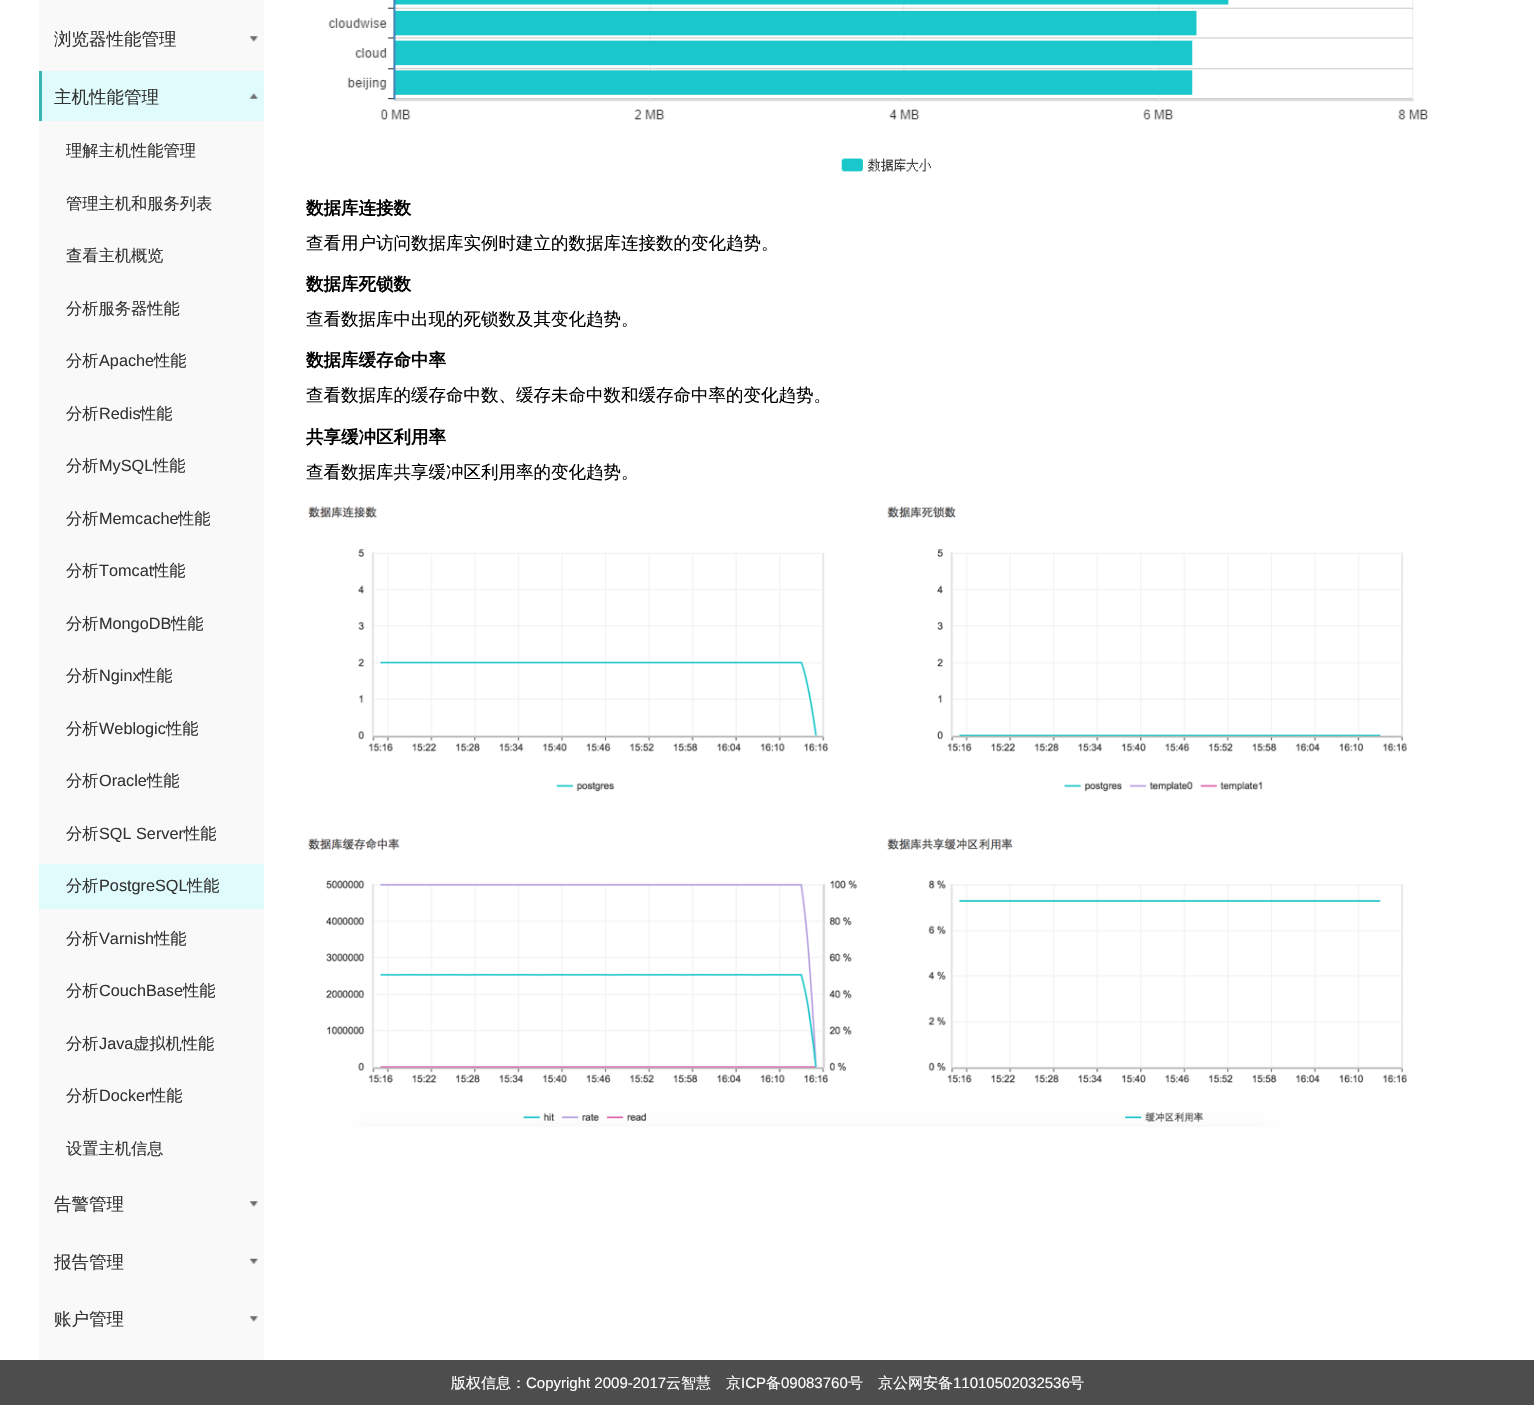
void draw(SkCanvas* canvas) {
    SkPaint paint;
    paint.setAntiAlias(true);
    canvas->clear(0xFFFFFFFF);
    paint.setColor(0xFFF9F9F9);
    canvas->drawRect(SkRect::MakeXYWH(39, 0, 225, 1360), paint);
    SkFont font1(fontMgr->matchFamilyStyle("WenQuanYi Zen Hei", SkFontStyle(500, SkFontStyle::kNormal_Width, SkFontStyle::kUpright_Slant)), 17.5f);
    font1.setSubpixel(true);
    paint.setColor(0xFF333333);
    canvas->drawString("浏览器性能管理", 54, 45, font1, paint);
    canvas->drawImageRect(SkImages::DeferredFromEncodedData(SkData::MakeFromFileName("img1.png")), SkRect::MakeXYWH(250, 36, 8, 6), SkSamplingOptions());
    paint.setColor(0xFFE0FBFB);
    canvas->drawRect(SkRect::MakeXYWH(42, 71, 222, 50), paint);
    paint.setColor(0xFF36B4B6);
    canvas->drawRect(SkRect::MakeXYWH(39, 71, 3, 50), paint);
    paint.setColor(0xFF333333);
    canvas->drawString("主机性能管理", 54, 103, font1, paint);
    canvas->drawImageRect(SkImages::DeferredFromEncodedData(SkData::MakeFromFileName("img2.png")), SkRect::MakeXYWH(250, 93, 8, 6), SkSamplingOptions());
    SkFont font2(fontMgr->matchFamilyStyle("WenQuanYi Zen Hei", SkFontStyle(500, SkFontStyle::kNormal_Width, SkFontStyle::kUpright_Slant)), 16.25f);
    font2.setSubpixel(true);
    canvas->drawString("理解主机性能管理", 66, 156, font2, paint);
    canvas->drawString("管理主机和服务列表", 66, 209, font2, paint);
    canvas->drawString("查看主机概览", 66, 261, font2, paint);
    canvas->drawString("分析服务器性能", 66, 314, font2, paint);
    canvas->drawString("分析", 66, 366, font2, paint);
    SkFont font3(fontMgr->matchFamilyStyle("Liberation Sans", SkFontStyle::Normal()), 16.25f);
    font3.setSubpixel(true);
    canvas->drawString("Apache", 99, 366, font3, paint);
    canvas->drawString("性能", 154, 366, font2, paint);
    canvas->drawString("分析", 66, 419, font2, paint);
    canvas->drawString("Redis", 99, 419, font3, paint);
    canvas->drawString("性能", 140, 419, font2, paint);
    canvas->drawString("分析", 66, 471, font2, paint);
    canvas->drawString("MySQL", 99, 471, font3, paint);
    canvas->drawString("性能", 153, 471, font2, paint);
    canvas->drawString("分析", 66, 524, font2, paint);
    canvas->drawString("Memcache", 99, 524, font3, paint);
    canvas->drawString("性能", 178, 524, font2, paint);
    canvas->drawString("分析", 66, 576, font2, paint);
    canvas->drawString("Tomcat", 99, 576, font3, paint);
    canvas->drawString("性能", 153, 576, font2, paint);
    canvas->drawString("分析", 66, 629, font2, paint);
    canvas->drawString("MongoDB", 99, 629, font3, paint);
    canvas->drawString("性能", 171, 629, font2, paint);
    canvas->drawString("分析", 66, 681, font2, paint);
    canvas->drawString("Nginx", 99, 681, font3, paint);
    canvas->drawString("性能", 140, 681, font2, paint);
    canvas->drawString("分析", 66, 734, font2, paint);
    canvas->drawString("Weblogic", 99, 734, font3, paint);
    canvas->drawString("性能", 166, 734, font2, paint);
    canvas->drawString("分析", 66, 786, font2, paint);
    canvas->drawString("Oracle", 99, 786, font3, paint);
    canvas->drawString("性能", 147, 786, font2, paint);
    canvas->drawString("分析", 66, 839, font2, paint);
    canvas->drawString("SQL Server", 99, 839, font3, paint);
    canvas->drawString("性能", 184, 839, font2, paint);
    paint.setColor(0xFFE0FBFB);
    canvas->drawRect(SkRect::MakeXYWH(39, 864, 225, 45), paint);
    paint.setColor(0xFF333333);
    canvas->drawString("分析", 66, 891, font2, paint);
    canvas->drawString("PostgreSQL", 99, 891, font3, paint);
    canvas->drawString("性能", 187, 891, font2, paint);
    canvas->drawString("分析", 66, 944, font2, paint);
    canvas->drawString("Varnish", 99, 944, font3, paint);
    canvas->drawString("性能", 154, 944, font2, paint);
    canvas->drawString("分析", 66, 996, font2, paint);
    canvas->drawString("CouchBase", 99, 996, font3, paint);
    canvas->drawString("性能", 183, 996, font2, paint);
    canvas->drawString("分析", 66, 1049, font2, paint);
    canvas->drawString("Java", 99, 1049, font3, paint);
    canvas->drawString("虚拟机性能", 133, 1049, font2, paint);
    canvas->drawString("分析", 66, 1101, font2, paint);
    canvas->drawString("Docker", 99, 1101, font3, paint);
    canvas->drawString("性能", 150, 1101, font2, paint);
    canvas->drawString("设置主机信息", 66, 1154, font2, paint);
    canvas->drawString("告警管理", 54, 1210, font1, paint);
    canvas->drawImageRect(SkImages::DeferredFromEncodedData(SkData::MakeFromFileName("img1.png")), SkRect::MakeXYWH(250, 1201, 8, 6), SkSamplingOptions());
    canvas->drawString("报告管理", 54, 1268, font1, paint);
    canvas->drawImageRect(SkImages::DeferredFromEncodedData(SkData::MakeFromFileName("img3.png")), SkRect::MakeXYWH(250, 1258, 8, 6), SkSamplingOptions());
    canvas->drawString("账户管理", 54, 1325, font1, paint);
    canvas->drawImageRect(SkImages::DeferredFromEncodedData(SkData::MakeFromFileName("img1.png")), SkRect::MakeXYWH(250, 1316, 8, 6), SkSamplingOptions());
    canvas->drawImageRect(SkImages::DeferredFromEncodedData(SkData::MakeFromFileName("img4.png")), SkRect::MakeXYWH(328, 0, 1101, 172), SkSamplingOptions());
    SkFont font4(fontMgr->matchFamilyStyle("WenQuanYi Zen Hei", SkFontStyle::Bold()), 17.5f);
    font4.setSubpixel(true);
    paint.setColor(0xFF000000);
    canvas->drawString("数据库连接数", 306, 214, font4, paint);
    canvas->drawString("查看用户访问数据库实例时建立的数据库连接数的变化趋势。", 306, 249, font1, paint);
    canvas->drawString("数据库死锁数", 306, 290, font4, paint);
    canvas->drawString("查看数据库中出现的死锁数及其变化趋势。", 306, 325, font1, paint);
    canvas->drawString("数据库缓存命中率", 306, 366, font4, paint);
    canvas->drawString("查看数据库的缓存命中数、缓存未命中数和缓存命中率的变化趋势。", 306, 401, font1, paint);
    canvas->drawString("共享缓冲区利用率", 306, 443, font4, paint);
    canvas->drawString("查看数据库共享缓冲区利用率的变化趋势。", 306, 478, font1, paint);
    canvas->drawImageRect(SkImages::DeferredFromEncodedData(SkData::MakeFromFileName("img5.png")), SkRect::MakeXYWH(308, 506, 1099, 621), SkSamplingOptions());
    paint.setColor(0xFF4D4D4D);
    canvas->drawRect(SkRect::MakeXYWH(0, 1360, 1534, 45), paint);
    SkFont font5(fontMgr->matchFamilyStyle("WenQuanYi Zen Hei", SkFontStyle(500, SkFontStyle::kNormal_Width, SkFontStyle::kUpright_Slant)), 15);
    font5.setSubpixel(true);
    paint.setColor(0xFFFFFFFF);
    canvas->drawString("版权信息：", 451, 1388, font5, paint);
    SkFont font6(fontMgr->matchFamilyStyle("Liberation Sans", SkFontStyle::Normal()), 15);
    font6.setSubpixel(true);
    canvas->drawString("Copyright 2009-2017", 526, 1388, font6, paint);
    canvas->drawString("云智慧　京", 666, 1388, font5, paint);
    canvas->drawString("ICP", 741, 1388, font6, paint);
    canvas->drawString("备", 766, 1388, font5, paint);
    canvas->drawString("09083760", 781, 1388, font6, paint);
    canvas->drawString("号　京公网安备", 848, 1388, font5, paint);
    canvas->drawString("11010502032536", 953, 1388, font6, paint);
    canvas->drawString("号", 1069, 1388, font5, paint);
}
